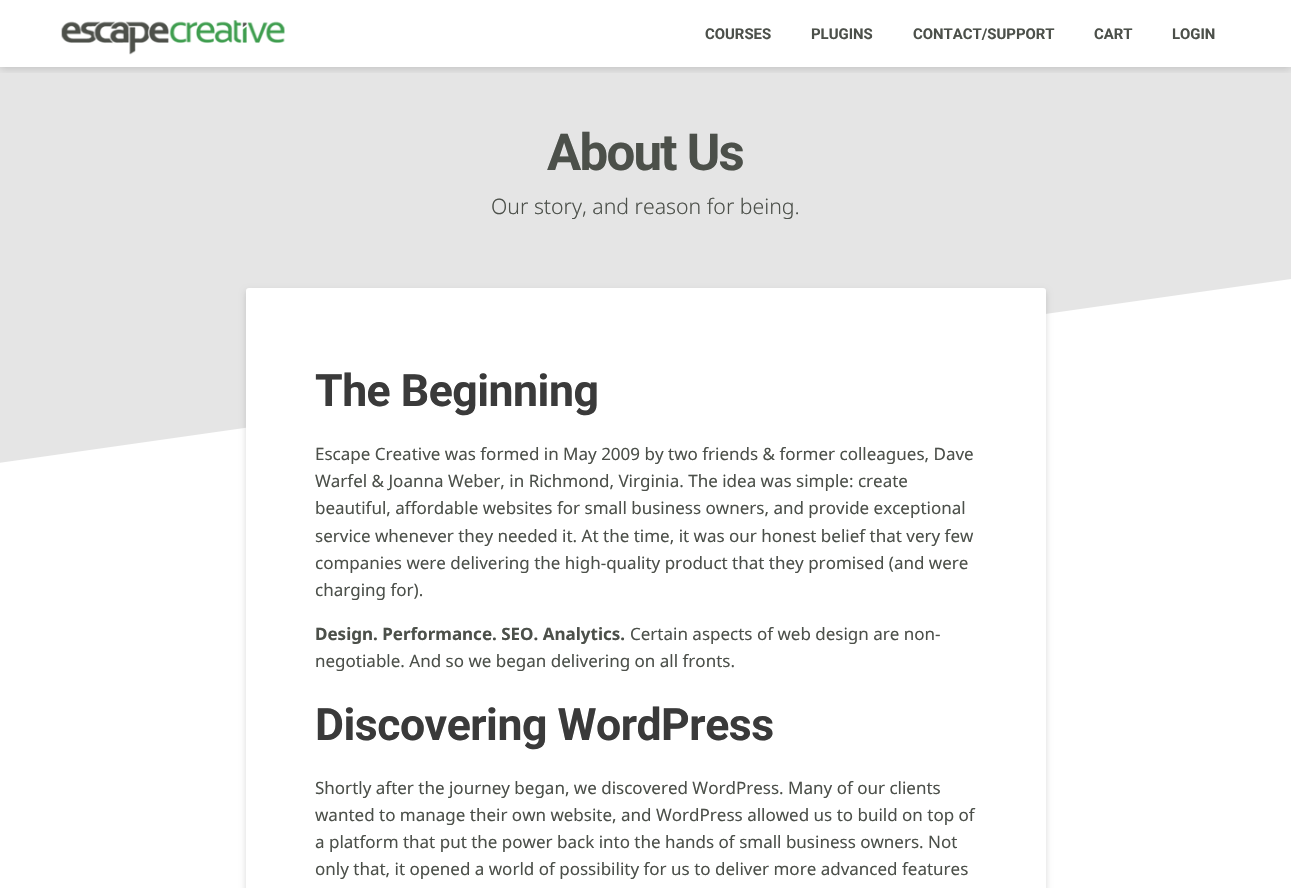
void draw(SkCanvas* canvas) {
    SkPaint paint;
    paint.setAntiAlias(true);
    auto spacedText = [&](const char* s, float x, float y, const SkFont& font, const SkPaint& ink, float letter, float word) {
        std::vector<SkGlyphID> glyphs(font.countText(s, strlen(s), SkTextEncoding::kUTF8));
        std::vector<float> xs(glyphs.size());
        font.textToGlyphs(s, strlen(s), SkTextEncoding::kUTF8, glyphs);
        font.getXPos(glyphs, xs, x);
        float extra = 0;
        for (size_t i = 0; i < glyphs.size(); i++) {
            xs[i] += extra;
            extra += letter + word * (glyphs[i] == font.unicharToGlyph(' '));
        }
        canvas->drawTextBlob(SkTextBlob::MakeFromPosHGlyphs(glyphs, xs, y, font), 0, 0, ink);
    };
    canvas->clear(0xFFFFFFFF);
    paint.setColor(0xFFE5E5E5);
    canvas->drawRect(SkRect::MakeXYWH(0, 67, 1291, 200), paint);
    canvas->save();
    canvas->clipRect(SkRect::MakeXYWH(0, 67, 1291, 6));
    paint.setColor(0x26000000);
    paint.setMaskFilter(SkMaskFilter::MakeBlur(kNormal_SkBlurStyle, 4));
    canvas->drawRect(SkRect::MakeXYWH(0, 2, 1291, 67), paint);
    paint.setMaskFilter(nullptr);
    canvas->restore();
    canvas->drawImageRect(SkImages::DeferredFromEncodedData(SkData::MakeFromFileName("img1.png")), SkRect::MakeXYWH(61, 20, 224, 35), SkSamplingOptions());
    SkFont font1(fontMgr->matchFamilyStyle("Roboto", SkFontStyle::Bold()), 14.9f);
    font1.setSubpixel(true);
    paint.setColor(0xFF4C504A);
    canvas->drawString("COURSES", 705, 39, font1, paint);
    canvas->drawString("PLUGINS", 811, 39, font1, paint);
    canvas->drawString("CONTACT/SUPPORT", 913, 39, font1, paint);
    canvas->drawString("CART", 1094, 39, font1, paint);
    canvas->drawString("LOGIN", 1172, 39, font1, paint);
    SkFont font2(fontMgr->matchFamilyStyle("Roboto", SkFontStyle::Bold()), 51);
    font2.setSubpixel(true);
    spacedText("About Us", 547, 170, font2, paint, -1.75f, 0);
    SkFont font3(fontMgr->matchFamilyStyle("Noto Sans", SkFontStyle(300, SkFontStyle::kNormal_Width, SkFontStyle::kUpright_Slant)), 21.25f);
    font3.setSubpixel(true);
    canvas->drawString("Our story, and reason for being.", 491, 214, font3, paint);
    paint.setColor(0xFFE5E5E5);
    canvas->drawPath(SkPathBuilder().moveTo(1291, 279).lineTo(1291, 267).lineTo(-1, 267).lineTo(-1, 463).close().detach(), paint);
    paint.setColor(0x26000000);
    paint.setMaskFilter(SkMaskFilter::MakeBlur(kNormal_SkBlurStyle, 3));
    canvas->drawRoundRect(SkRect::MakeXYWH(246, 291, 800, 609), 3, 3, paint);
    paint.setMaskFilter(nullptr);
    paint.setColor(0xFFFFFFFF);
    canvas->drawRoundRect(SkRect::MakeXYWH(246, 288, 800, 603), 3, 3, paint);
    SkFont font4(fontMgr->matchFamilyStyle("Roboto", SkFontStyle::Bold()), 44.6f);
    font4.setSubpixel(true);
    paint.setColor(0xFF3A3A3A);
    spacedText("The Beginning", 315, 406, font4, paint, -0.5f, 0);
    SkFont font5(fontMgr->matchFamilyStyle("Noto Sans", SkFontStyle::Normal()), 17);
    font5.setSubpixel(true);
    paint.setColor(0xFF4C504A);
    canvas->drawString("Escape Creative was formed in May 2009 by two friends & former colleagues, Dave", 315, 460, font5, paint);
    canvas->drawString("Warfel & Joanna Weber, in Richmond, Virginia. The idea was simple: create", 315, 487, font5, paint);
    canvas->drawString("beautiful, affordable websites for small business owners, and provide exceptional", 315, 514, font5, paint);
    canvas->drawString("service whenever they needed it. At the time, it was our honest belief that very few", 315, 542, font5, paint);
    canvas->drawString("companies were delivering the high-quality product that they promised (and were", 315, 569, font5, paint);
    canvas->drawString("charging for).", 315, 596, font5, paint);
    SkFont font6(fontMgr->matchFamilyStyle("Noto Sans", SkFontStyle::Bold()), 17);
    font6.setSubpixel(true);
    canvas->drawString("Design. Performance. SEO. Analytics.", 315, 640, font6, paint);
    canvas->drawString("Certain aspects of web design are non-", 630, 640, font5, paint);
    canvas->drawString("negotiable. And so we began delivering on all fronts.", 315, 667, font5, paint);
    paint.setColor(0xFF3A3A3A);
    spacedText("Discovering WordPress", 315, 740, font4, paint, -0.5f, 0);
    paint.setColor(0xFF4C504A);
    canvas->drawString("Shortly after the journey began, we discovered WordPress. Many of our clients", 315, 794, font5, paint);
    canvas->drawString("wanted to manage their own website, and WordPress allowed us to build on top of", 315, 821, font5, paint);
    canvas->drawString("a platform that put the power back into the hands of small business owners. Not", 315, 848, font5, paint);
    canvas->drawString("only that, it opened a world of possibility for us to deliver more advanced features", 315, 875, font5, paint);
}
